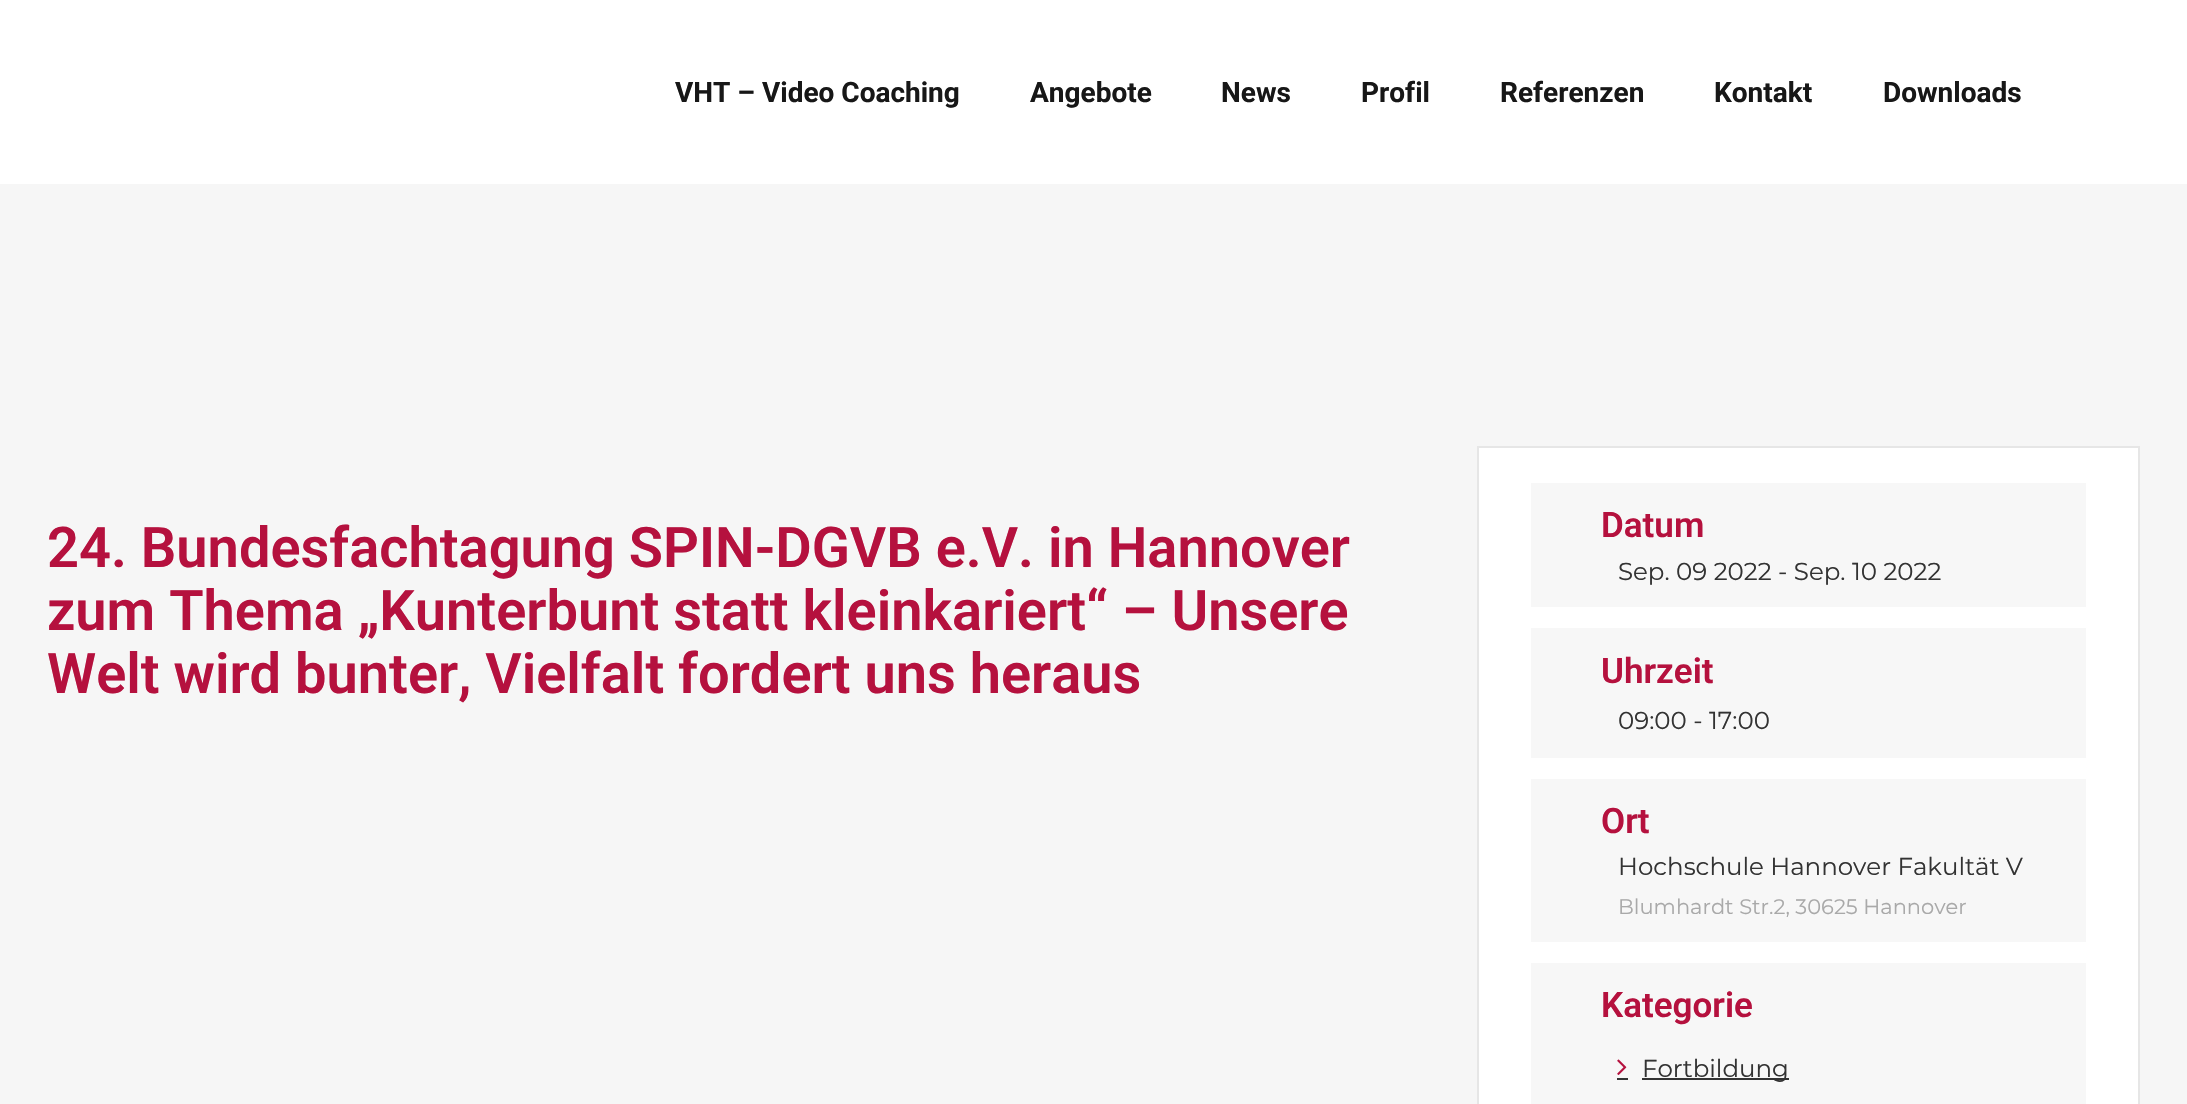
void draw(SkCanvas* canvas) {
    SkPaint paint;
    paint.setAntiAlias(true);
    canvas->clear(0xFFF6F6F6);
    paint.setColor(0xFFFFFFFF);
    canvas->drawRect(SkRect::MakeXYWH(0, 0, 2187, 184), paint);
    SkFont font1(fontMgr->matchFamilyStyle("Roboto", SkFontStyle::Bold()), 28);
    font1.setSubpixel(true);
    paint.setColor(0xFF171717);
    canvas->drawString("VHT – Video Coaching", 675, 102, font1, paint);
    canvas->drawString("Angebote", 1030, 102, font1, paint);
    canvas->drawString("News", 1221, 102, font1, paint);
    canvas->drawString("Profil", 1361, 102, font1, paint);
    canvas->drawString("Referenzen", 1500, 102, font1, paint);
    canvas->drawString("Kontakt", 1714, 102, font1, paint);
    canvas->drawString("Downloads", 1883, 102, font1, paint);
    SkFont font2(fontMgr->matchFamilyStyle("Roboto", SkFontStyle(600, SkFontStyle::kNormal_Width, SkFontStyle::kUpright_Slant)), 56);
    font2.setSubpixel(true);
    paint.setColor(0xFFB5113E);
    canvas->drawString("24. Bundesfachtagung SPIN-DGVB e.V. in Hannover", 47, 567, font2, paint);
    canvas->drawString("zum Thema „Kunterbunt statt kleinkariert“ – Unsere", 47, 630, font2, paint);
    canvas->drawString("Welt wird bunter, Vielfalt fordert uns heraus", 47, 693, font2, paint);
    paint.setColor(0xFFFFFFFF);
    canvas->drawRect(SkRect::MakeXYWH(1478, 447, 661, 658), paint);
    paint.setStyle(SkPaint::kStroke_Style);
    paint.setStrokeWidth(2);
    paint.setColor(0xFFE6E6E6);
    canvas->drawRect(SkRect::MakeXYWH(1478, 447, 661, 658), paint);
    paint.setStyle(SkPaint::kFill_Style);
    paint.setColor(0xFFF7F7F7);
    canvas->drawRect(SkRect::MakeXYWH(1531, 483, 555, 124), paint);
    SkFont font3(fontMgr->matchFamilyStyle("Roboto", SkFontStyle(600, SkFontStyle::kNormal_Width, SkFontStyle::kUpright_Slant)), 35);
    font3.setSubpixel(true);
    paint.setColor(0xFFB5113E);
    canvas->drawString("Datum", 1601, 537, font3, paint);
    SkFont font4(fontMgr->matchFamilyStyle("Montserrat", SkFontStyle::Normal()), 24.5f);
    font4.setSubpixel(true);
    paint.setColor(0xFF333333);
    canvas->drawString("Sep. 09 2022 - Sep. 10 2022", 1618, 580, font4, paint);
    paint.setColor(0xFFF7F7F7);
    canvas->drawRect(SkRect::MakeXYWH(1531, 628, 555, 130), paint);
    paint.setColor(0xFFB5113E);
    canvas->drawString("Uhrzeit", 1601, 683, font3, paint);
    paint.setColor(0xFF333333);
    canvas->drawString("09:00 - 17:00", 1618, 729, font4, paint);
    paint.setColor(0xFFF7F7F7);
    canvas->drawRect(SkRect::MakeXYWH(1531, 779, 555, 163), paint);
    paint.setColor(0xFFB5113E);
    canvas->drawString("Ort", 1601, 833, font3, paint);
    paint.setColor(0xFF333333);
    canvas->drawString("Hochschule Hannover Fakultät V", 1618, 875, font4, paint);
    SkFont font5(fontMgr->matchFamilyStyle("Montserrat", SkFontStyle::Normal()), 21);
    font5.setSubpixel(true);
    paint.setColor(0xFFA9A9A9);
    canvas->drawString("Blumhardt Str.2, 30625 Hannover", 1618, 914, font5, paint);
    paint.setColor(0xFFF7F7F7);
    canvas->drawRect(SkRect::MakeXYWH(1531, 963, 555, 141), paint);
    paint.setColor(0xFFB5113E);
    canvas->drawString("Kategorie", 1601, 1017, font3, paint);
    canvas->drawImageRect(SkImages::DeferredFromEncodedData(SkData::MakeFromFileName("img1.png")), SkRect::MakeXYWH(1617, 1059, 10, 16), SkSamplingOptions());
    paint.setColor(0xFF333333);
    canvas->drawRect(SkRect::MakeXYWH(1642, 1078, 147, 2), paint);
    canvas->drawString("Fortbildung", 1642, 1077, font4, paint);
    canvas->drawRect(SkRect::MakeXYWH(1617, 1078, 11, 2), paint);
}
